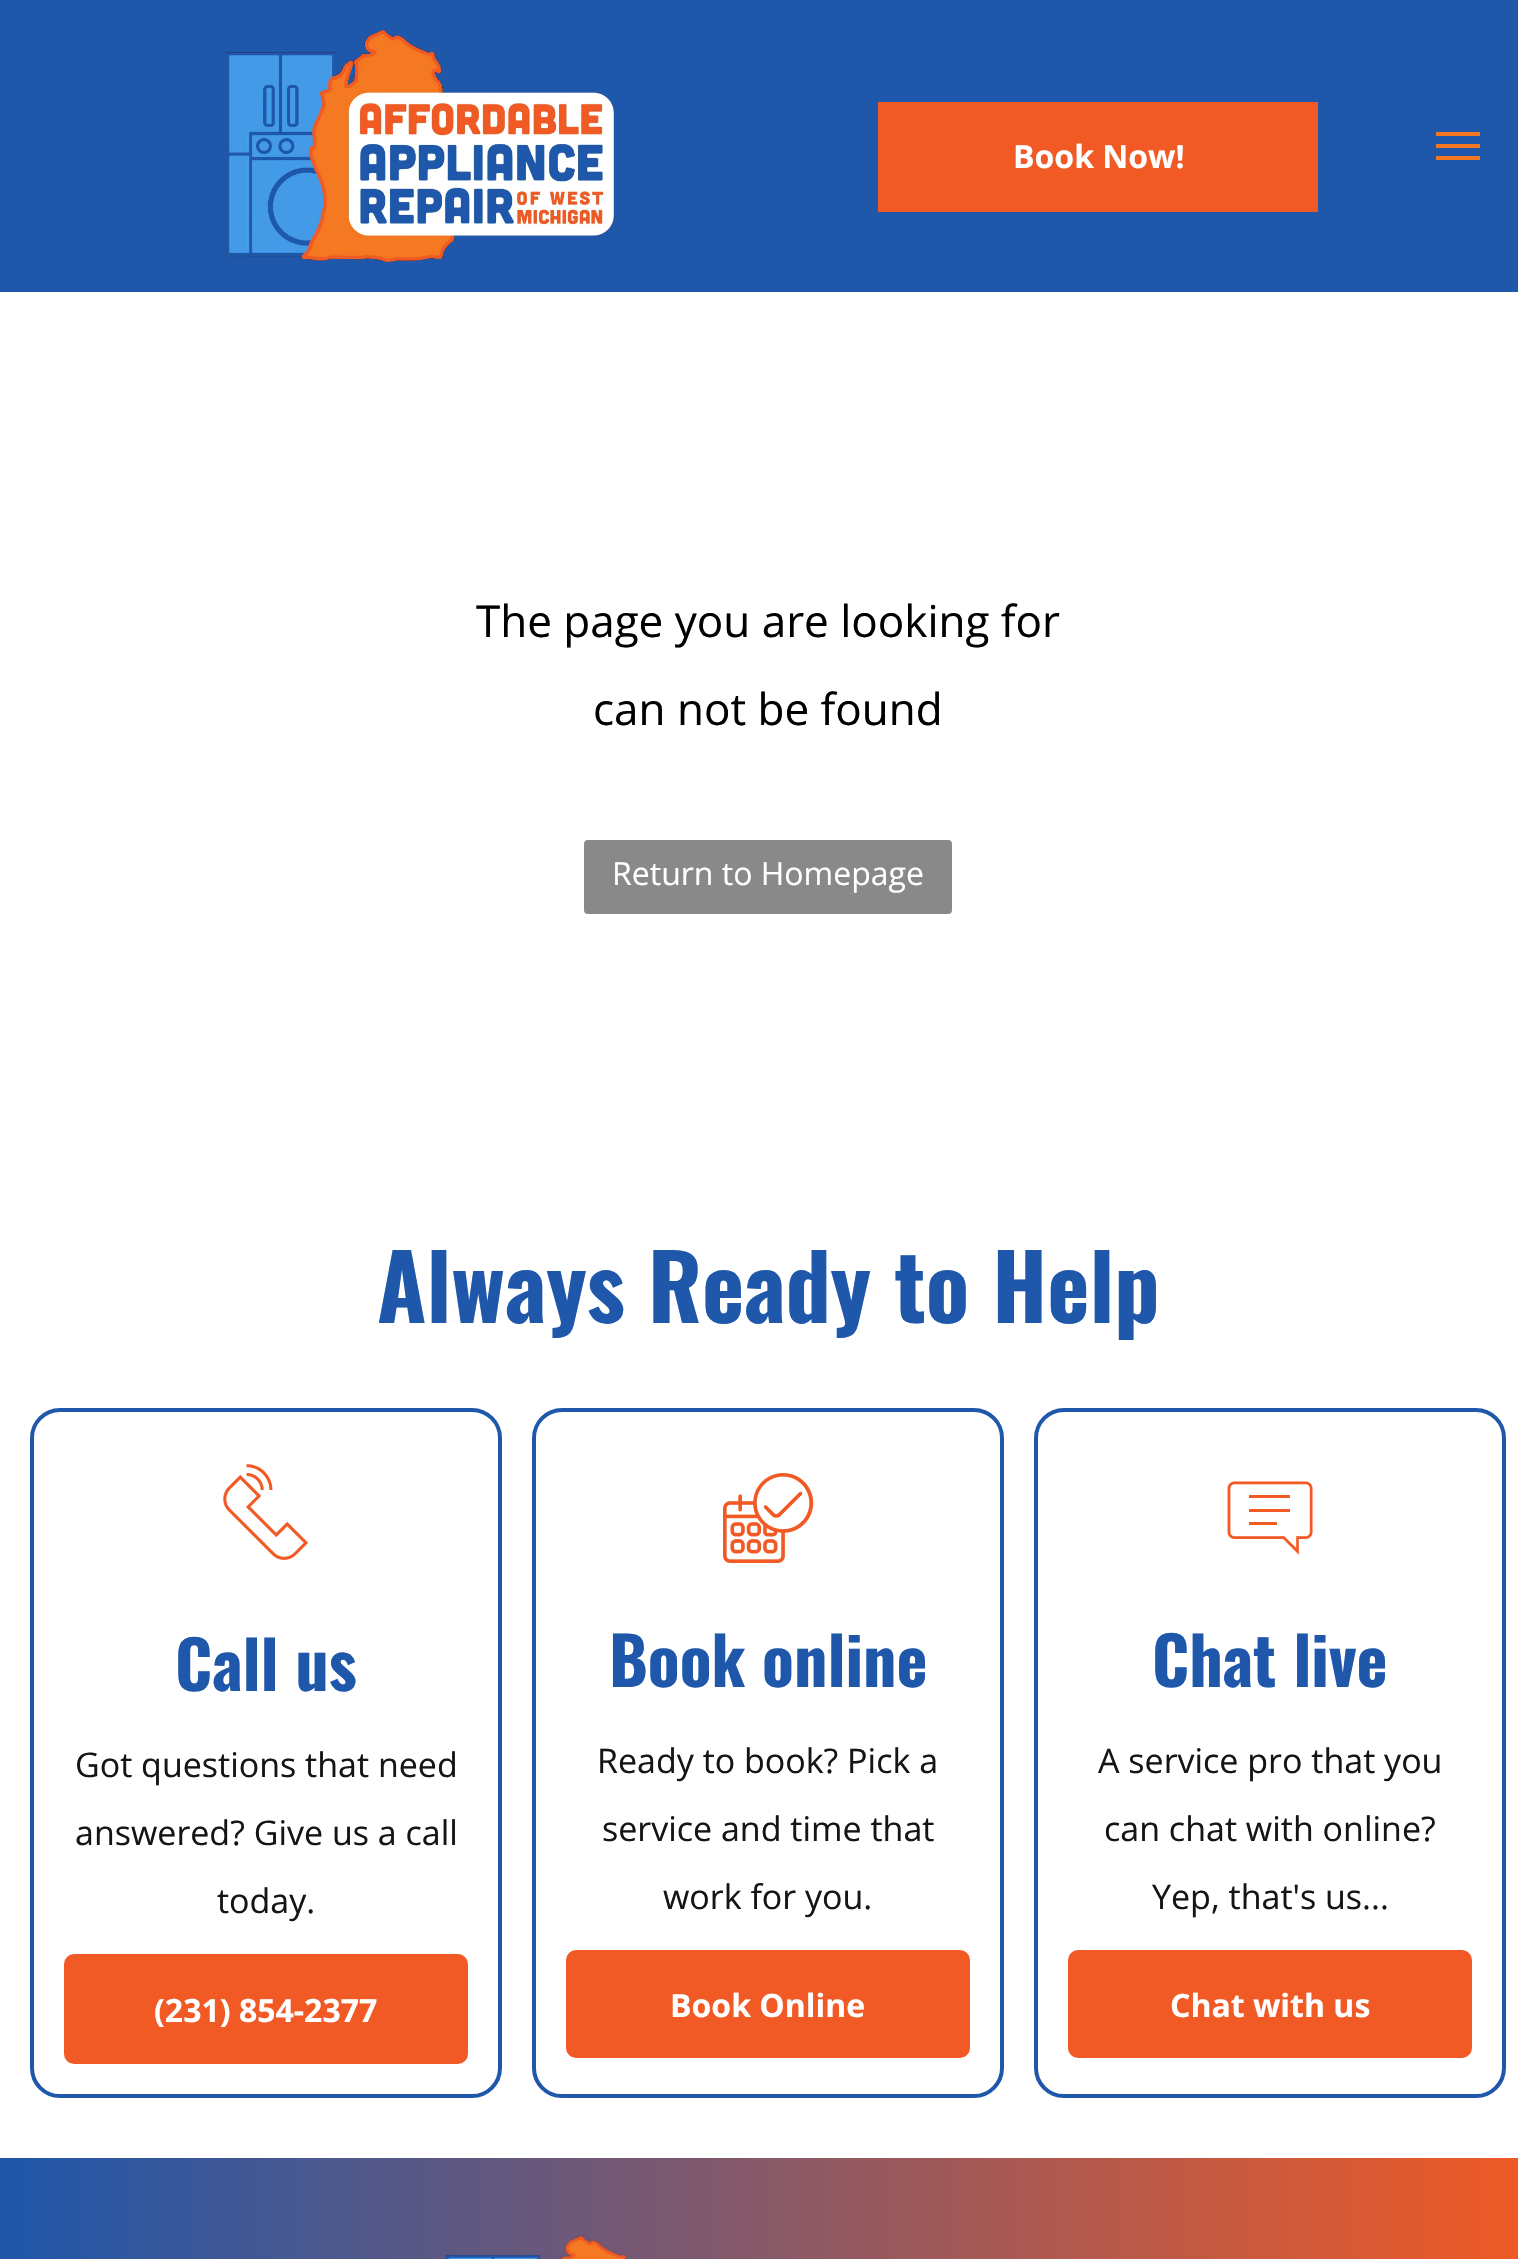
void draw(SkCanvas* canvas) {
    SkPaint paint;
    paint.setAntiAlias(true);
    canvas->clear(0xFFFFFFFF);
    paint.setColor(0xFF1F57AA);
    canvas->drawRect(SkRect::MakeXYWH(0, 0, 1518, 292), paint);
    canvas->drawImageRect(SkImages::DeferredFromEncodedData(SkData::MakeFromFileName("img1.png")), SkRect::MakeXYWH(225, 30, 389, 232), SkSamplingOptions());
    paint.setColor(0xFFF15A25);
    canvas->drawRect(SkRect::MakeXYWH(878, 102, 440, 110), paint);
    SkFont font1(fontMgr->matchFamilyStyle("Open Sans", SkFontStyle::Bold()), 32);
    font1.setSubpixel(true);
    paint.setColor(0xFFFFFFFF);
    canvas->drawString("Book Now!", 1013, 168, font1, paint);
    paint.setColor(0xFFF47822);
    canvas->drawRect(SkRect::MakeXYWH(1436, 132, 44, 4), paint);
    canvas->drawRect(SkRect::MakeXYWH(1436, 144, 44, 4), paint);
    canvas->drawRect(SkRect::MakeXYWH(1436, 156, 44, 4), paint);
    SkFont font2(fontMgr->matchFamilyStyle("Open Sans", SkFontStyle::Normal()), 44);
    font2.setSubpixel(true);
    paint.setColor(0xFF000000);
    canvas->drawString("The page you are looking for", 476, 637, font2, paint);
    canvas->drawString("can not be found", 593, 725, font2, paint);
    paint.setColor(0xFF898989);
    canvas->drawRoundRect(SkRect::MakeXYWH(584, 840, 368, 74), 4, 4, paint);
    SkFont font3(fontMgr->matchFamilyStyle("Open Sans", SkFontStyle::Normal()), 32);
    font3.setSubpixel(true);
    paint.setColor(0xFFFFFFFF);
    canvas->drawString("Return to Homepage", 612, 885, font3, paint);
    SkFont font4(fontMgr->matchFamilyStyle("Oswald", SkFontStyle::Bold()), 90);
    font4.setSubpixel(true);
    paint.setColor(0xFF1F57AA);
    canvas->drawString("Always Ready to Help", 377, 1323, font4, paint);
    paint.setStyle(SkPaint::kStroke_Style);
    paint.setStrokeWidth(4);
    canvas->drawRoundRect(SkRect::MakeXYWH(32, 1410, 468, 686), 28, 28, paint);
    canvas->drawImageRect(SkImages::DeferredFromEncodedData(SkData::MakeFromFileName("img2.png")), SkRect::MakeXYWH(223, 1464, 85, 96), SkSamplingOptions());
    SkFont font5(fontMgr->matchFamilyStyle("Oswald", SkFontStyle::Bold()), 66);
    font5.setSubpixel(true);
    paint.setStyle(SkPaint::kFill_Style);
    canvas->drawString("Call us", 175, 1691, font5, paint);
    SkFont font6(fontMgr->matchFamilyStyle("Open Sans", SkFontStyle::Normal()), 34);
    font6.setSubpixel(true);
    paint.setColor(0xFF151515);
    canvas->drawString("Got questions that need", 75, 1777, font6, paint);
    canvas->drawString("answered? Give us a call", 75, 1845, font6, paint);
    canvas->drawString("today.", 217, 1913, font6, paint);
    paint.setColor(0xFFF15A25);
    canvas->drawRoundRect(SkRect::MakeXYWH(64, 1954, 404, 110), 10, 10, paint);
    paint.setColor(0xFFFFFFFF);
    canvas->drawString("(231) 854-2377", 154, 2022, font1, paint);
    paint.setStyle(SkPaint::kStroke_Style);
    paint.setColor(0xFF1F57AA);
    canvas->drawRoundRect(SkRect::MakeXYWH(534, 1410, 468, 686), 28, 28, paint);
    canvas->drawImageRect(SkImages::DeferredFromEncodedData(SkData::MakeFromFileName("img3.png")), SkRect::MakeXYWH(723, 1473, 91, 90), SkSamplingOptions());
    paint.setStyle(SkPaint::kFill_Style);
    canvas->drawString("Book online", 609, 1687, font5, paint);
    paint.setColor(0xFF151515);
    canvas->drawString("Ready to book? Pick a", 597, 1773, font6, paint);
    canvas->drawString("service and time that", 602, 1841, font6, paint);
    canvas->drawString("work for you.", 663, 1909, font6, paint);
    paint.setColor(0xFFF15A25);
    canvas->drawRoundRect(SkRect::MakeXYWH(566, 1950, 404, 108), 10, 10, paint);
    paint.setColor(0xFFFFFFFF);
    canvas->drawString("Book Online", 670, 2017, font1, paint);
    paint.setStyle(SkPaint::kStroke_Style);
    paint.setColor(0xFF1F57AA);
    canvas->drawRoundRect(SkRect::MakeXYWH(1036, 1410, 468, 686), 28, 28, paint);
    canvas->drawImageRect(SkImages::DeferredFromEncodedData(SkData::MakeFromFileName("img4.png")), SkRect::MakeXYWH(1227, 1481, 86, 74), SkSamplingOptions());
    paint.setStyle(SkPaint::kFill_Style);
    canvas->drawString("Chat live", 1152, 1687, font5, paint);
    paint.setColor(0xFF151515);
    canvas->drawString("A service pro that you", 1098, 1773, font6, paint);
    canvas->drawString("can chat with online?", 1104, 1841, font6, paint);
    canvas->drawString("Yep, that's us...", 1152, 1909, font6, paint);
    paint.setColor(0xFFF15A25);
    canvas->drawRoundRect(SkRect::MakeXYWH(1068, 1950, 404, 108), 10, 10, paint);
    paint.setColor(0xFFFFFFFF);
    canvas->drawString("Chat with us", 1170, 2017, font1, paint);
    {
        const SkColor colors[] = {0xFF1F57AA, 0xFFF15A25};
        const float stops[] = {0, 1};
        const SkPoint ends[] = {{0, 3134}, {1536, 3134}};
        paint.setShader(SkGradientShader::MakeLinear(ends, colors, stops, 2, SkTileMode::kClamp));
        paint.setAlpha(255);
    }
    canvas->drawRect(SkRect::MakeXYWH(0, 2158, 1518, 101), paint);
    canvas->drawImageRect(SkImages::DeferredFromEncodedData(SkData::MakeFromFileName("img5.png")), SkRect::MakeXYWH(446, 2236, 181, 23), SkSamplingOptions());
}
